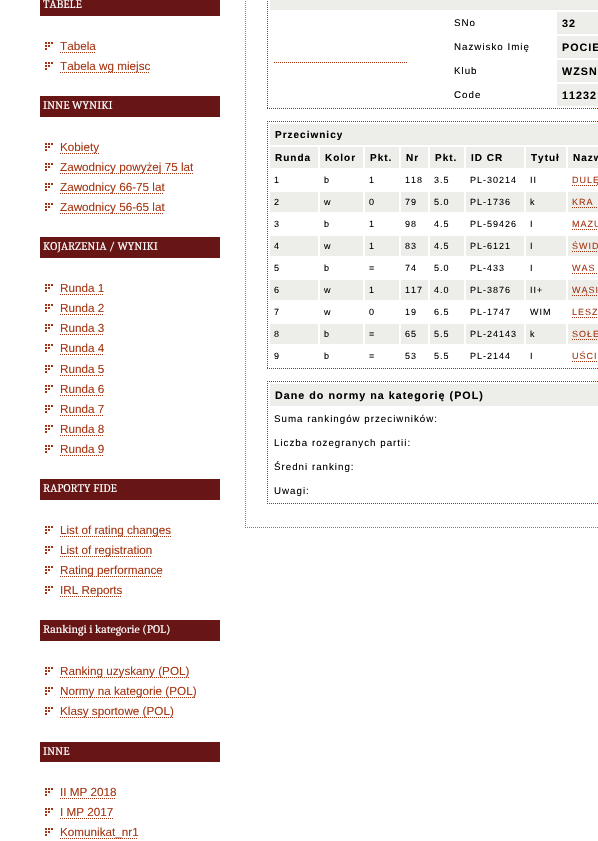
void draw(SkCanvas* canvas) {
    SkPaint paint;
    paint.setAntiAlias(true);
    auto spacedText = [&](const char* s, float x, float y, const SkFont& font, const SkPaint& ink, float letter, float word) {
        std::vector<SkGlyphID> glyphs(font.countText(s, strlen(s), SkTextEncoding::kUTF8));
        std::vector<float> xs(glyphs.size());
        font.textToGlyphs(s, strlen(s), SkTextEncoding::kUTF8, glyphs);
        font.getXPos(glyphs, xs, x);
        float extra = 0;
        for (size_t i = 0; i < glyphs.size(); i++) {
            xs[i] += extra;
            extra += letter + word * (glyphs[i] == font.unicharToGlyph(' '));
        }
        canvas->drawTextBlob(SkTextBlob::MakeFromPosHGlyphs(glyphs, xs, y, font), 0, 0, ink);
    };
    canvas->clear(0xFFFFFFFF);
    paint.setColor(0xFF671515);
    canvas->drawRect(SkRect::MakeXYWH(40, 0, 180, 16), paint);
    SkFont font1(fontMgr->matchFamilyStyle("Caladea", SkFontStyle::Normal()), 11.7f);
    font1.setSubpixel(true);
    paint.setColor(0xFFFFFFFF);
    canvas->drawString("TABELE", 43, 8, font1, paint);
    canvas->drawImageRect(SkImages::DeferredFromEncodedData(SkData::MakeFromFileName("img1.png")), SkRect::MakeXYWH(45, 42, 8, 8), SkSamplingOptions());
    SkFont font2(fontMgr->matchFamilyStyle("Liberation Sans", SkFontStyle::Normal()), 11.7f);
    font2.setSubpixel(true);
    paint.setColor(0xFFA53512);
    canvas->drawString("Tabela", 60, 50, font2, paint);
    paint.setStyle(SkPaint::kStroke_Style);
    paint.setStrokeWidth(1);
    paint.setPathEffect(SkDashPathEffect::Make({{1, 1}}, 0));
    canvas->drawPath(SkPathBuilder().moveTo(60, 52.5f).lineTo(96, 52.5f).detach(), paint);
    paint.setPathEffect(nullptr);
    canvas->drawImageRect(SkImages::DeferredFromEncodedData(SkData::MakeFromFileName("img1.png")), SkRect::MakeXYWH(45, 62, 8, 8), SkSamplingOptions());
    paint.setPathEffect(SkDashPathEffect::Make({{1, 1}}, 0));
    canvas->drawPath(SkPathBuilder().moveTo(60, 72.5f).lineTo(150, 72.5f).detach(), paint);
    paint.setPathEffect(nullptr);
    paint.setStyle(SkPaint::kFill_Style);
    canvas->drawString("Tabela wg miejsc", 60, 70, font2, paint);
    paint.setColor(0xFF671515);
    canvas->drawRect(SkRect::MakeXYWH(40, 96, 180, 21), paint);
    paint.setColor(0xFFFFFFFF);
    canvas->drawString("INNE WYNIKI", 43, 109, font1, paint);
    canvas->drawImageRect(SkImages::DeferredFromEncodedData(SkData::MakeFromFileName("img1.png")), SkRect::MakeXYWH(45, 143, 8, 8), SkSamplingOptions());
    paint.setStyle(SkPaint::kStroke_Style);
    paint.setColor(0xFFA53512);
    paint.setPathEffect(SkDashPathEffect::Make({{1, 1}}, 0));
    canvas->drawPath(SkPathBuilder().moveTo(60, 153.5f).lineTo(99, 153.5f).detach(), paint);
    paint.setPathEffect(nullptr);
    paint.setStyle(SkPaint::kFill_Style);
    canvas->drawString("Kobiety", 60, 151, font2, paint);
    canvas->drawImageRect(SkImages::DeferredFromEncodedData(SkData::MakeFromFileName("img1.png")), SkRect::MakeXYWH(45, 163, 8, 8), SkSamplingOptions());
    paint.setStyle(SkPaint::kStroke_Style);
    paint.setPathEffect(SkDashPathEffect::Make({{1, 1}}, 0));
    canvas->drawPath(SkPathBuilder().moveTo(60, 173.5f).lineTo(193, 173.5f).detach(), paint);
    paint.setPathEffect(nullptr);
    paint.setStyle(SkPaint::kFill_Style);
    canvas->drawString("Zawodnicy powyżej 75 lat", 60, 171, font2, paint);
    canvas->drawImageRect(SkImages::DeferredFromEncodedData(SkData::MakeFromFileName("img1.png")), SkRect::MakeXYWH(45, 183, 8, 8), SkSamplingOptions());
    paint.setStyle(SkPaint::kStroke_Style);
    paint.setPathEffect(SkDashPathEffect::Make({{1, 1}}, 0));
    canvas->drawPath(SkPathBuilder().moveTo(60, 193.5f).lineTo(164, 193.5f).detach(), paint);
    paint.setPathEffect(nullptr);
    paint.setStyle(SkPaint::kFill_Style);
    canvas->drawString("Zawodnicy 66-75 lat", 60, 191, font2, paint);
    canvas->drawImageRect(SkImages::DeferredFromEncodedData(SkData::MakeFromFileName("img1.png")), SkRect::MakeXYWH(45, 203, 8, 8), SkSamplingOptions());
    paint.setStyle(SkPaint::kStroke_Style);
    paint.setPathEffect(SkDashPathEffect::Make({{1, 1}}, 0));
    canvas->drawPath(SkPathBuilder().moveTo(60, 213.5f).lineTo(164, 213.5f).detach(), paint);
    paint.setPathEffect(nullptr);
    paint.setStyle(SkPaint::kFill_Style);
    canvas->drawString("Zawodnicy 56-65 lat", 60, 211, font2, paint);
    paint.setColor(0xFF671515);
    canvas->drawRect(SkRect::MakeXYWH(40, 237, 180, 21), paint);
    paint.setColor(0xFFFFFFFF);
    canvas->drawString("KOJARZENIA / WYNIKI", 43, 250, font1, paint);
    canvas->drawImageRect(SkImages::DeferredFromEncodedData(SkData::MakeFromFileName("img1.png")), SkRect::MakeXYWH(45, 284, 8, 8), SkSamplingOptions());
    paint.setColor(0xFFA53512);
    canvas->drawString("Runda 1", 60, 292, font2, paint);
    paint.setStyle(SkPaint::kStroke_Style);
    paint.setPathEffect(SkDashPathEffect::Make({{1, 1}}, 0));
    canvas->drawPath(SkPathBuilder().moveTo(60, 294.5f).lineTo(104, 294.5f).detach(), paint);
    paint.setPathEffect(nullptr);
    canvas->drawImageRect(SkImages::DeferredFromEncodedData(SkData::MakeFromFileName("img1.png")), SkRect::MakeXYWH(45, 304, 8, 8), SkSamplingOptions());
    paint.setStyle(SkPaint::kFill_Style);
    canvas->drawString("Runda 2", 60, 312, font2, paint);
    paint.setStyle(SkPaint::kStroke_Style);
    paint.setPathEffect(SkDashPathEffect::Make({{1, 1}}, 0));
    canvas->drawPath(SkPathBuilder().moveTo(60, 314.5f).lineTo(104, 314.5f).detach(), paint);
    paint.setPathEffect(nullptr);
    canvas->drawImageRect(SkImages::DeferredFromEncodedData(SkData::MakeFromFileName("img1.png")), SkRect::MakeXYWH(45, 324, 8, 8), SkSamplingOptions());
    paint.setStyle(SkPaint::kFill_Style);
    canvas->drawString("Runda 3", 60, 332, font2, paint);
    paint.setStyle(SkPaint::kStroke_Style);
    paint.setPathEffect(SkDashPathEffect::Make({{1, 1}}, 0));
    canvas->drawPath(SkPathBuilder().moveTo(60, 334.5f).lineTo(104, 334.5f).detach(), paint);
    paint.setPathEffect(nullptr);
    canvas->drawImageRect(SkImages::DeferredFromEncodedData(SkData::MakeFromFileName("img1.png")), SkRect::MakeXYWH(45, 344, 8, 8), SkSamplingOptions());
    paint.setStyle(SkPaint::kFill_Style);
    canvas->drawString("Runda 4", 60, 352, font2, paint);
    paint.setStyle(SkPaint::kStroke_Style);
    paint.setPathEffect(SkDashPathEffect::Make({{1, 1}}, 0));
    canvas->drawPath(SkPathBuilder().moveTo(60, 354.5f).lineTo(104, 354.5f).detach(), paint);
    paint.setPathEffect(nullptr);
    canvas->drawImageRect(SkImages::DeferredFromEncodedData(SkData::MakeFromFileName("img1.png")), SkRect::MakeXYWH(45, 365, 8, 8), SkSamplingOptions());
    paint.setStyle(SkPaint::kFill_Style);
    canvas->drawString("Runda 5", 60, 373, font2, paint);
    paint.setStyle(SkPaint::kStroke_Style);
    paint.setPathEffect(SkDashPathEffect::Make({{1, 1}}, 0));
    canvas->drawPath(SkPathBuilder().moveTo(60, 375.5f).lineTo(104, 375.5f).detach(), paint);
    paint.setPathEffect(nullptr);
    canvas->drawImageRect(SkImages::DeferredFromEncodedData(SkData::MakeFromFileName("img1.png")), SkRect::MakeXYWH(45, 385, 8, 8), SkSamplingOptions());
    paint.setStyle(SkPaint::kFill_Style);
    canvas->drawString("Runda 6", 60, 393, font2, paint);
    paint.setStyle(SkPaint::kStroke_Style);
    paint.setPathEffect(SkDashPathEffect::Make({{1, 1}}, 0));
    canvas->drawPath(SkPathBuilder().moveTo(60, 395.5f).lineTo(104, 395.5f).detach(), paint);
    paint.setPathEffect(nullptr);
    canvas->drawImageRect(SkImages::DeferredFromEncodedData(SkData::MakeFromFileName("img1.png")), SkRect::MakeXYWH(45, 405, 8, 8), SkSamplingOptions());
    paint.setStyle(SkPaint::kFill_Style);
    canvas->drawString("Runda 7", 60, 413, font2, paint);
    paint.setStyle(SkPaint::kStroke_Style);
    paint.setPathEffect(SkDashPathEffect::Make({{1, 1}}, 0));
    canvas->drawPath(SkPathBuilder().moveTo(60, 415.5f).lineTo(104, 415.5f).detach(), paint);
    paint.setPathEffect(nullptr);
    canvas->drawImageRect(SkImages::DeferredFromEncodedData(SkData::MakeFromFileName("img1.png")), SkRect::MakeXYWH(45, 425, 8, 8), SkSamplingOptions());
    paint.setStyle(SkPaint::kFill_Style);
    canvas->drawString("Runda 8", 60, 433, font2, paint);
    paint.setStyle(SkPaint::kStroke_Style);
    paint.setPathEffect(SkDashPathEffect::Make({{1, 1}}, 0));
    canvas->drawPath(SkPathBuilder().moveTo(60, 435.5f).lineTo(104, 435.5f).detach(), paint);
    paint.setPathEffect(nullptr);
    canvas->drawImageRect(SkImages::DeferredFromEncodedData(SkData::MakeFromFileName("img1.png")), SkRect::MakeXYWH(45, 445, 8, 8), SkSamplingOptions());
    paint.setStyle(SkPaint::kFill_Style);
    canvas->drawString("Runda 9", 60, 453, font2, paint);
    paint.setStyle(SkPaint::kStroke_Style);
    paint.setPathEffect(SkDashPathEffect::Make({{1, 1}}, 0));
    canvas->drawPath(SkPathBuilder().moveTo(60, 455.5f).lineTo(104, 455.5f).detach(), paint);
    paint.setPathEffect(nullptr);
    paint.setStyle(SkPaint::kFill_Style);
    paint.setColor(0xFF671515);
    canvas->drawRect(SkRect::MakeXYWH(40, 479, 180, 21), paint);
    paint.setColor(0xFFFFFFFF);
    canvas->drawString("RAPORTY FIDE", 43, 492, font1, paint);
    canvas->drawImageRect(SkImages::DeferredFromEncodedData(SkData::MakeFromFileName("img1.png")), SkRect::MakeXYWH(45, 526, 8, 8), SkSamplingOptions());
    paint.setStyle(SkPaint::kStroke_Style);
    paint.setColor(0xFFA53512);
    paint.setPathEffect(SkDashPathEffect::Make({{1, 1}}, 0));
    canvas->drawPath(SkPathBuilder().moveTo(60, 536.5f).lineTo(171, 536.5f).detach(), paint);
    paint.setPathEffect(nullptr);
    paint.setStyle(SkPaint::kFill_Style);
    canvas->drawString("List of rating changes", 60, 534, font2, paint);
    canvas->drawImageRect(SkImages::DeferredFromEncodedData(SkData::MakeFromFileName("img1.png")), SkRect::MakeXYWH(45, 546, 8, 8), SkSamplingOptions());
    paint.setStyle(SkPaint::kStroke_Style);
    paint.setPathEffect(SkDashPathEffect::Make({{1, 1}}, 0));
    canvas->drawPath(SkPathBuilder().moveTo(60, 556.5f).lineTo(152, 556.5f).detach(), paint);
    paint.setPathEffect(nullptr);
    paint.setStyle(SkPaint::kFill_Style);
    canvas->drawString("List of registration", 60, 554, font2, paint);
    canvas->drawImageRect(SkImages::DeferredFromEncodedData(SkData::MakeFromFileName("img1.png")), SkRect::MakeXYWH(45, 566, 8, 8), SkSamplingOptions());
    paint.setStyle(SkPaint::kStroke_Style);
    paint.setPathEffect(SkDashPathEffect::Make({{1, 1}}, 0));
    canvas->drawPath(SkPathBuilder().moveTo(60, 576.5f).lineTo(162, 576.5f).detach(), paint);
    paint.setPathEffect(nullptr);
    paint.setStyle(SkPaint::kFill_Style);
    canvas->drawString("Rating performance", 60, 574, font2, paint);
    canvas->drawImageRect(SkImages::DeferredFromEncodedData(SkData::MakeFromFileName("img1.png")), SkRect::MakeXYWH(45, 586, 8, 8), SkSamplingOptions());
    paint.setStyle(SkPaint::kStroke_Style);
    paint.setPathEffect(SkDashPathEffect::Make({{1, 1}}, 0));
    canvas->drawPath(SkPathBuilder().moveTo(60, 596.5f).lineTo(122, 596.5f).detach(), paint);
    paint.setPathEffect(nullptr);
    paint.setStyle(SkPaint::kFill_Style);
    canvas->drawString("IRL Reports", 60, 594, font2, paint);
    paint.setColor(0xFF671515);
    canvas->drawRect(SkRect::MakeXYWH(40, 620, 180, 21), paint);
    paint.setColor(0xFFFFFFFF);
    canvas->drawString("Rankingi i kategorie (POL)", 43, 633, font1, paint);
    canvas->drawImageRect(SkImages::DeferredFromEncodedData(SkData::MakeFromFileName("img1.png")), SkRect::MakeXYWH(45, 667, 8, 8), SkSamplingOptions());
    paint.setStyle(SkPaint::kStroke_Style);
    paint.setColor(0xFFA53512);
    paint.setPathEffect(SkDashPathEffect::Make({{1, 1}}, 0));
    canvas->drawPath(SkPathBuilder().moveTo(60, 677.5f).lineTo(189, 677.5f).detach(), paint);
    paint.setPathEffect(nullptr);
    paint.setStyle(SkPaint::kFill_Style);
    canvas->drawString("Ranking uzyskany (POL)", 60, 675, font2, paint);
    canvas->drawImageRect(SkImages::DeferredFromEncodedData(SkData::MakeFromFileName("img1.png")), SkRect::MakeXYWH(45, 687, 8, 8), SkSamplingOptions());
    paint.setStyle(SkPaint::kStroke_Style);
    paint.setPathEffect(SkDashPathEffect::Make({{1, 1}}, 0));
    canvas->drawPath(SkPathBuilder().moveTo(60, 697.5f).lineTo(196, 697.5f).detach(), paint);
    paint.setPathEffect(nullptr);
    paint.setStyle(SkPaint::kFill_Style);
    canvas->drawString("Normy na kategorie (POL)", 60, 695, font2, paint);
    canvas->drawImageRect(SkImages::DeferredFromEncodedData(SkData::MakeFromFileName("img1.png")), SkRect::MakeXYWH(45, 707, 8, 8), SkSamplingOptions());
    paint.setStyle(SkPaint::kStroke_Style);
    paint.setPathEffect(SkDashPathEffect::Make({{1, 1}}, 0));
    canvas->drawPath(SkPathBuilder().moveTo(60, 717.5f).lineTo(173, 717.5f).detach(), paint);
    paint.setPathEffect(nullptr);
    paint.setStyle(SkPaint::kFill_Style);
    canvas->drawString("Klasy sportowe (POL)", 60, 715, font2, paint);
    paint.setColor(0xFF671515);
    canvas->drawRect(SkRect::MakeXYWH(40, 742, 180, 20), paint);
    paint.setColor(0xFFFFFFFF);
    canvas->drawString("INNE", 43, 755, font1, paint);
    canvas->drawImageRect(SkImages::DeferredFromEncodedData(SkData::MakeFromFileName("img1.png")), SkRect::MakeXYWH(45, 788, 8, 8), SkSamplingOptions());
    paint.setColor(0xFFA53512);
    canvas->drawString("II MP 2018", 60, 796, font2, paint);
    paint.setStyle(SkPaint::kStroke_Style);
    paint.setPathEffect(SkDashPathEffect::Make({{1, 1}}, 0));
    canvas->drawPath(SkPathBuilder().moveTo(60, 798.5f).lineTo(116, 798.5f).detach(), paint);
    paint.setPathEffect(nullptr);
    canvas->drawImageRect(SkImages::DeferredFromEncodedData(SkData::MakeFromFileName("img1.png")), SkRect::MakeXYWH(45, 808, 8, 8), SkSamplingOptions());
    paint.setStyle(SkPaint::kFill_Style);
    canvas->drawString("I MP 2017", 60, 816, font2, paint);
    paint.setStyle(SkPaint::kStroke_Style);
    paint.setPathEffect(SkDashPathEffect::Make({{1, 1}}, 0));
    canvas->drawPath(SkPathBuilder().moveTo(60, 818.5f).lineTo(113, 818.5f).detach(), paint);
    paint.setPathEffect(nullptr);
    canvas->drawImageRect(SkImages::DeferredFromEncodedData(SkData::MakeFromFileName("img1.png")), SkRect::MakeXYWH(45, 828, 8, 8), SkSamplingOptions());
    paint.setPathEffect(SkDashPathEffect::Make({{1, 1}}, 0));
    canvas->drawPath(SkPathBuilder().moveTo(60, 838.5f).lineTo(138, 838.5f).detach(), paint);
    paint.setPathEffect(nullptr);
    paint.setStyle(SkPaint::kFill_Style);
    canvas->drawString("Komunikat_nr1", 60, 836, font2, paint);
    paint.setStyle(SkPaint::kStroke_Style);
    paint.setColor(0xFF807C7C);
    paint.setPathEffect(SkDashPathEffect::Make({{1, 1}}, 0));
    canvas->drawPath(SkPathBuilder().moveTo(245, 527.5f).lineTo(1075, 527.5f).detach(), paint);
    paint.setPathEffect(nullptr);
    paint.setPathEffect(SkDashPathEffect::Make({{1, 1}}, 0));
    canvas->drawPath(SkPathBuilder().moveTo(245.5f, -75).lineTo(245.5f, 528).detach(), paint);
    paint.setPathEffect(nullptr);
    paint.setColor(0xFFA53512);
    paint.setPathEffect(SkDashPathEffect::Make({{1, 1}}, 0));
    canvas->drawPath(SkPathBuilder().moveTo(267, 108.5f).lineTo(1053, 108.5f).detach(), paint);
    paint.setPathEffect(nullptr);
    paint.setPathEffect(SkDashPathEffect::Make({{1, 1}}, 0));
    canvas->drawPath(SkPathBuilder().moveTo(267.5f, -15).lineTo(267.5f, 109).detach(), paint);
    paint.setPathEffect(nullptr);
    paint.setStyle(SkPaint::kFill_Style);
    paint.setColor(0xFFEDEEEA);
    canvas->drawRect(SkRect::MakeXYWH(270, 0, 328, 10), paint);
    SkFont font3(fontMgr->matchFamilyStyle("Liberation Sans", SkFontStyle::Normal()), 9.75f);
    font3.setSubpixel(true);
    paint.setColor(0xFF000000);
    spacedText("SNo", 454, 26, font3, paint, 1, 0);
    paint.setColor(0xFFEDEEEA);
    canvas->drawRect(SkRect::MakeXYWH(557, 12, 41, 22), paint);
    SkFont font4(fontMgr->matchFamilyStyle("Liberation Sans", SkFontStyle::Bold()), 10.75f);
    font4.setSubpixel(true);
    paint.setColor(0xFF000000);
    spacedText("32", 562, 27, font4, paint, 1, 0);
    paint.setStyle(SkPaint::kStroke_Style);
    paint.setColor(0xFFA53512);
    paint.setPathEffect(SkDashPathEffect::Make({{1, 1}}, 0));
    canvas->drawPath(SkPathBuilder().moveTo(274, 62.5f).lineTo(408, 62.5f).detach(), paint);
    paint.setPathEffect(nullptr);
    paint.setStyle(SkPaint::kFill_Style);
    paint.setColor(0xFF000000);
    spacedText("Nazwisko Imię", 454, 50, font3, paint, 1, 0);
    paint.setColor(0xFFEDEEEA);
    canvas->drawRect(SkRect::MakeXYWH(557, 36, 41, 22), paint);
    paint.setColor(0xFF000000);
    spacedText("POCIE", 562, 51, font4, paint, 1, 0);
    spacedText("Klub", 454, 74, font3, paint, 1, 0);
    paint.setColor(0xFFEDEEEA);
    canvas->drawRect(SkRect::MakeXYWH(557, 60, 41, 22), paint);
    paint.setColor(0xFF000000);
    spacedText("WZSN", 562, 75, font4, paint, 1, 0);
    spacedText("Code", 454, 98, font3, paint, 1, 0);
    paint.setColor(0xFFEDEEEA);
    canvas->drawRect(SkRect::MakeXYWH(557, 84, 41, 22), paint);
    paint.setColor(0xFF000000);
    spacedText("11232", 562, 99, font4, paint, 1, 0);
    paint.setStyle(SkPaint::kStroke_Style);
    paint.setColor(0xFFA53512);
    paint.setPathEffect(SkDashPathEffect::Make({{1, 1}}, 0));
    canvas->drawPath(SkPathBuilder().moveTo(267, 121.5f).lineTo(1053, 121.5f).detach(), paint);
    paint.setPathEffect(nullptr);
    paint.setPathEffect(SkDashPathEffect::Make({{1, 1}}, 0));
    canvas->drawPath(SkPathBuilder().moveTo(267, 368.5f).lineTo(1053, 368.5f).detach(), paint);
    paint.setPathEffect(nullptr);
    paint.setPathEffect(SkDashPathEffect::Make({{1, 1}}, 0));
    canvas->drawPath(SkPathBuilder().moveTo(267.5f, 121).lineTo(267.5f, 369).detach(), paint);
    paint.setPathEffect(nullptr);
    paint.setStyle(SkPaint::kFill_Style);
    paint.setColor(0xFFEDEEEA);
    canvas->drawRect(SkRect::MakeXYWH(270, 124, 328, 21), paint);
    SkFont font5(fontMgr->matchFamilyStyle("Liberation Sans", SkFontStyle::Bold()), 10);
    font5.setSubpixel(true);
    paint.setColor(0xFF000000);
    spacedText("Przeciwnicy", 275, 138, font5, paint, 1, 0);
    paint.setColor(0xFFEDEEEA);
    canvas->drawRect(SkRect::MakeXYWH(270, 147, 48, 21), paint);
    paint.setColor(0xFF000000);
    spacedText("Runda", 275, 161, font5, paint, 1, 0);
    paint.setColor(0xFFEDEEEA);
    canvas->drawRect(SkRect::MakeXYWH(320, 147, 43, 21), paint);
    paint.setColor(0xFF000000);
    spacedText("Kolor", 325, 161, font5, paint, 1, 0);
    paint.setColor(0xFFEDEEEA);
    canvas->drawRect(SkRect::MakeXYWH(365, 147, 34, 21), paint);
    paint.setColor(0xFF000000);
    spacedText("Pkt.", 370, 161, font5, paint, 1, 0);
    paint.setColor(0xFFEDEEEA);
    canvas->drawRect(SkRect::MakeXYWH(401, 147, 27, 21), paint);
    paint.setColor(0xFF000000);
    spacedText("Nr", 406, 161, font5, paint, 1, 0);
    paint.setColor(0xFFEDEEEA);
    canvas->drawRect(SkRect::MakeXYWH(430, 147, 34, 21), paint);
    paint.setColor(0xFF000000);
    spacedText("Pkt.", 435, 161, font5, paint, 1, 0);
    paint.setColor(0xFFEDEEEA);
    canvas->drawRect(SkRect::MakeXYWH(466, 147, 58, 21), paint);
    paint.setColor(0xFF000000);
    spacedText("ID CR", 471, 161, font5, paint, 1, 0);
    paint.setColor(0xFFEDEEEA);
    canvas->drawRect(SkRect::MakeXYWH(526, 147, 40, 21), paint);
    paint.setColor(0xFF000000);
    spacedText("Tytuł", 531, 161, font5, paint, 1, 0);
    paint.setColor(0xFFEDEEEA);
    canvas->drawRect(SkRect::MakeXYWH(568, 147, 30, 21), paint);
    paint.setColor(0xFF000000);
    spacedText("Nazw", 573, 161, font5, paint, 1, 0);
    SkFont font6(fontMgr->matchFamilyStyle("Liberation Sans", SkFontStyle::Normal()), 9);
    font6.setSubpixel(true);
    spacedText("1", 274, 183, font6, paint, 1, 0);
    spacedText("b", 324, 183, font6, paint, 1, 0);
    spacedText("1", 369, 183, font6, paint, 1, 0);
    spacedText("118", 405, 183, font6, paint, 1, 0);
    spacedText("3.5", 434, 183, font6, paint, 1, 0);
    spacedText("PL-30214", 470, 183, font6, paint, 1, 0);
    spacedText("II", 530, 183, font6, paint, 1, 0);
    paint.setColor(0xFFA53512);
    spacedText("DULĘ", 572, 183, font6, paint, 1, 0);
    paint.setStyle(SkPaint::kStroke_Style);
    paint.setPathEffect(SkDashPathEffect::Make({{1, 1}}, 0));
    canvas->drawPath(SkPathBuilder().moveTo(572, 185.5f).lineTo(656, 185.5f).detach(), paint);
    paint.setPathEffect(nullptr);
    paint.setStyle(SkPaint::kFill_Style);
    paint.setColor(0xFFEDEEEA);
    canvas->drawRect(SkRect::MakeXYWH(270, 192, 48, 20), paint);
    paint.setColor(0xFF000000);
    spacedText("2", 274, 205, font6, paint, 1, 0);
    paint.setColor(0xFFEDEEEA);
    canvas->drawRect(SkRect::MakeXYWH(320, 192, 43, 20), paint);
    paint.setColor(0xFF000000);
    spacedText("w", 324, 205, font6, paint, 1, 0);
    paint.setColor(0xFFEDEEEA);
    canvas->drawRect(SkRect::MakeXYWH(365, 192, 34, 20), paint);
    paint.setColor(0xFF000000);
    spacedText("0", 369, 205, font6, paint, 1, 0);
    paint.setColor(0xFFEDEEEA);
    canvas->drawRect(SkRect::MakeXYWH(401, 192, 27, 20), paint);
    paint.setColor(0xFF000000);
    spacedText("79", 405, 205, font6, paint, 1, 0);
    paint.setColor(0xFFEDEEEA);
    canvas->drawRect(SkRect::MakeXYWH(430, 192, 34, 20), paint);
    paint.setColor(0xFF000000);
    spacedText("5.0", 434, 205, font6, paint, 1, 0);
    paint.setColor(0xFFEDEEEA);
    canvas->drawRect(SkRect::MakeXYWH(466, 192, 58, 20), paint);
    paint.setColor(0xFF000000);
    spacedText("PL-1736", 470, 205, font6, paint, 1, 0);
    paint.setColor(0xFFEDEEEA);
    canvas->drawRect(SkRect::MakeXYWH(526, 192, 40, 20), paint);
    paint.setColor(0xFF000000);
    spacedText("k", 530, 205, font6, paint, 1, 0);
    paint.setColor(0xFFEDEEEA);
    canvas->drawRect(SkRect::MakeXYWH(568, 192, 30, 20), paint);
    paint.setColor(0xFFA53512);
    spacedText("KRA", 572, 205, font6, paint, 1, 0);
    paint.setStyle(SkPaint::kStroke_Style);
    paint.setPathEffect(SkDashPathEffect::Make({{1, 1}}, 0));
    canvas->drawPath(SkPathBuilder().moveTo(572, 207.5f).lineTo(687, 207.5f).detach(), paint);
    paint.setPathEffect(nullptr);
    paint.setStyle(SkPaint::kFill_Style);
    paint.setColor(0xFF000000);
    spacedText("3", 274, 227, font6, paint, 1, 0);
    spacedText("b", 324, 227, font6, paint, 1, 0);
    spacedText("1", 369, 227, font6, paint, 1, 0);
    spacedText("98", 405, 227, font6, paint, 1, 0);
    spacedText("4.5", 434, 227, font6, paint, 1, 0);
    spacedText("PL-59426", 470, 227, font6, paint, 1, 0);
    spacedText("I", 530, 227, font6, paint, 1, 0);
    paint.setColor(0xFFA53512);
    spacedText("MAZU", 572, 227, font6, paint, 1, 0);
    paint.setStyle(SkPaint::kStroke_Style);
    paint.setPathEffect(SkDashPathEffect::Make({{1, 1}}, 0));
    canvas->drawPath(SkPathBuilder().moveTo(572, 229.5f).lineTo(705, 229.5f).detach(), paint);
    paint.setPathEffect(nullptr);
    paint.setStyle(SkPaint::kFill_Style);
    paint.setColor(0xFFEDEEEA);
    canvas->drawRect(SkRect::MakeXYWH(270, 236, 48, 20), paint);
    paint.setColor(0xFF000000);
    spacedText("4", 274, 249, font6, paint, 1, 0);
    paint.setColor(0xFFEDEEEA);
    canvas->drawRect(SkRect::MakeXYWH(320, 236, 43, 20), paint);
    paint.setColor(0xFF000000);
    spacedText("w", 324, 249, font6, paint, 1, 0);
    paint.setColor(0xFFEDEEEA);
    canvas->drawRect(SkRect::MakeXYWH(365, 236, 34, 20), paint);
    paint.setColor(0xFF000000);
    spacedText("1", 369, 249, font6, paint, 1, 0);
    paint.setColor(0xFFEDEEEA);
    canvas->drawRect(SkRect::MakeXYWH(401, 236, 27, 20), paint);
    paint.setColor(0xFF000000);
    spacedText("83", 405, 249, font6, paint, 1, 0);
    paint.setColor(0xFFEDEEEA);
    canvas->drawRect(SkRect::MakeXYWH(430, 236, 34, 20), paint);
    paint.setColor(0xFF000000);
    spacedText("4.5", 434, 249, font6, paint, 1, 0);
    paint.setColor(0xFFEDEEEA);
    canvas->drawRect(SkRect::MakeXYWH(466, 236, 58, 20), paint);
    paint.setColor(0xFF000000);
    spacedText("PL-6121", 470, 249, font6, paint, 1, 0);
    paint.setColor(0xFFEDEEEA);
    canvas->drawRect(SkRect::MakeXYWH(526, 236, 40, 20), paint);
    paint.setColor(0xFF000000);
    spacedText("I", 530, 249, font6, paint, 1, 0);
    paint.setColor(0xFFEDEEEA);
    canvas->drawRect(SkRect::MakeXYWH(568, 236, 30, 20), paint);
    paint.setColor(0xFFA53512);
    spacedText("ŚWID", 572, 249, font6, paint, 1, 0);
    paint.setStyle(SkPaint::kStroke_Style);
    paint.setPathEffect(SkDashPathEffect::Make({{1, 1}}, 0));
    canvas->drawPath(SkPathBuilder().moveTo(572, 251.5f).lineTo(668, 251.5f).detach(), paint);
    paint.setPathEffect(nullptr);
    paint.setStyle(SkPaint::kFill_Style);
    paint.setColor(0xFF000000);
    spacedText("5", 274, 271, font6, paint, 1, 0);
    spacedText("b", 324, 271, font6, paint, 1, 0);
    spacedText("=", 369, 271, font6, paint, 1, 0);
    spacedText("74", 405, 271, font6, paint, 1, 0);
    spacedText("5.0", 434, 271, font6, paint, 1, 0);
    spacedText("PL-433", 470, 271, font6, paint, 1, 0);
    spacedText("I", 530, 271, font6, paint, 1, 0);
    paint.setColor(0xFFA53512);
    spacedText("WAS", 572, 271, font6, paint, 1, 0);
    paint.setStyle(SkPaint::kStroke_Style);
    paint.setPathEffect(SkDashPathEffect::Make({{1, 1}}, 0));
    canvas->drawPath(SkPathBuilder().moveTo(572, 273.5f).lineTo(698, 273.5f).detach(), paint);
    paint.setPathEffect(nullptr);
    paint.setStyle(SkPaint::kFill_Style);
    paint.setColor(0xFFEDEEEA);
    canvas->drawRect(SkRect::MakeXYWH(270, 280, 48, 20), paint);
    paint.setColor(0xFF000000);
    spacedText("6", 274, 293, font6, paint, 1, 0);
    paint.setColor(0xFFEDEEEA);
    canvas->drawRect(SkRect::MakeXYWH(320, 280, 43, 20), paint);
    paint.setColor(0xFF000000);
    spacedText("w", 324, 293, font6, paint, 1, 0);
    paint.setColor(0xFFEDEEEA);
    canvas->drawRect(SkRect::MakeXYWH(365, 280, 34, 20), paint);
    paint.setColor(0xFF000000);
    spacedText("1", 369, 293, font6, paint, 1, 0);
    paint.setColor(0xFFEDEEEA);
    canvas->drawRect(SkRect::MakeXYWH(401, 280, 27, 20), paint);
    paint.setColor(0xFF000000);
    spacedText("117", 405, 293, font6, paint, 1, 0);
    paint.setColor(0xFFEDEEEA);
    canvas->drawRect(SkRect::MakeXYWH(430, 280, 34, 20), paint);
    paint.setColor(0xFF000000);
    spacedText("4.0", 434, 293, font6, paint, 1, 0);
    paint.setColor(0xFFEDEEEA);
    canvas->drawRect(SkRect::MakeXYWH(466, 280, 58, 20), paint);
    paint.setColor(0xFF000000);
    spacedText("PL-3876", 470, 293, font6, paint, 1, 0);
    paint.setColor(0xFFEDEEEA);
    canvas->drawRect(SkRect::MakeXYWH(526, 280, 40, 20), paint);
    paint.setColor(0xFF000000);
    spacedText("II+", 530, 293, font6, paint, 1, 0);
    paint.setColor(0xFFEDEEEA);
    canvas->drawRect(SkRect::MakeXYWH(568, 280, 30, 20), paint);
    paint.setColor(0xFFA53512);
    spacedText("WĄSI", 572, 293, font6, paint, 1, 0);
    paint.setStyle(SkPaint::kStroke_Style);
    paint.setPathEffect(SkDashPathEffect::Make({{1, 1}}, 0));
    canvas->drawPath(SkPathBuilder().moveTo(572, 295.5f).lineTo(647, 295.5f).detach(), paint);
    paint.setPathEffect(nullptr);
    paint.setStyle(SkPaint::kFill_Style);
    paint.setColor(0xFF000000);
    spacedText("7", 274, 315, font6, paint, 1, 0);
    spacedText("w", 324, 315, font6, paint, 1, 0);
    spacedText("0", 369, 315, font6, paint, 1, 0);
    spacedText("19", 405, 315, font6, paint, 1, 0);
    spacedText("6.5", 434, 315, font6, paint, 1, 0);
    spacedText("PL-1747", 470, 315, font6, paint, 1, 0);
    spacedText("WIM", 530, 315, font6, paint, 1, 0);
    paint.setColor(0xFFA53512);
    spacedText("LESZ", 572, 315, font6, paint, 1, 0);
    paint.setStyle(SkPaint::kStroke_Style);
    paint.setPathEffect(SkDashPathEffect::Make({{1, 1}}, 0));
    canvas->drawPath(SkPathBuilder().moveTo(572, 317.5f).lineTo(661, 317.5f).detach(), paint);
    paint.setPathEffect(nullptr);
    paint.setStyle(SkPaint::kFill_Style);
    paint.setColor(0xFFEDEEEA);
    canvas->drawRect(SkRect::MakeXYWH(270, 324, 48, 20), paint);
    paint.setColor(0xFF000000);
    spacedText("8", 274, 337, font6, paint, 1, 0);
    paint.setColor(0xFFEDEEEA);
    canvas->drawRect(SkRect::MakeXYWH(320, 324, 43, 20), paint);
    paint.setColor(0xFF000000);
    spacedText("b", 324, 337, font6, paint, 1, 0);
    paint.setColor(0xFFEDEEEA);
    canvas->drawRect(SkRect::MakeXYWH(365, 324, 34, 20), paint);
    paint.setColor(0xFF000000);
    spacedText("=", 369, 337, font6, paint, 1, 0);
    paint.setColor(0xFFEDEEEA);
    canvas->drawRect(SkRect::MakeXYWH(401, 324, 27, 20), paint);
    paint.setColor(0xFF000000);
    spacedText("65", 405, 337, font6, paint, 1, 0);
    paint.setColor(0xFFEDEEEA);
    canvas->drawRect(SkRect::MakeXYWH(430, 324, 34, 20), paint);
    paint.setColor(0xFF000000);
    spacedText("5.5", 434, 337, font6, paint, 1, 0);
    paint.setColor(0xFFEDEEEA);
    canvas->drawRect(SkRect::MakeXYWH(466, 324, 58, 20), paint);
    paint.setColor(0xFF000000);
    spacedText("PL-24143", 470, 337, font6, paint, 1, 0);
    paint.setColor(0xFFEDEEEA);
    canvas->drawRect(SkRect::MakeXYWH(526, 324, 40, 20), paint);
    paint.setColor(0xFF000000);
    spacedText("k", 530, 337, font6, paint, 1, 0);
    paint.setColor(0xFFEDEEEA);
    canvas->drawRect(SkRect::MakeXYWH(568, 324, 30, 20), paint);
    paint.setColor(0xFFA53512);
    spacedText("SOŁE", 572, 337, font6, paint, 1, 0);
    paint.setStyle(SkPaint::kStroke_Style);
    paint.setPathEffect(SkDashPathEffect::Make({{1, 1}}, 0));
    canvas->drawPath(SkPathBuilder().moveTo(572, 339.5f).lineTo(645, 339.5f).detach(), paint);
    paint.setPathEffect(nullptr);
    paint.setStyle(SkPaint::kFill_Style);
    paint.setColor(0xFF000000);
    spacedText("9", 274, 359, font6, paint, 1, 0);
    spacedText("b", 324, 359, font6, paint, 1, 0);
    spacedText("=", 369, 359, font6, paint, 1, 0);
    spacedText("53", 405, 359, font6, paint, 1, 0);
    spacedText("5.5", 434, 359, font6, paint, 1, 0);
    spacedText("PL-2144", 470, 359, font6, paint, 1, 0);
    spacedText("I", 530, 359, font6, paint, 1, 0);
    paint.setColor(0xFFA53512);
    spacedText("UŚCI", 572, 359, font6, paint, 1, 0);
    paint.setStyle(SkPaint::kStroke_Style);
    paint.setPathEffect(SkDashPathEffect::Make({{1, 1}}, 0));
    canvas->drawPath(SkPathBuilder().moveTo(572, 361.5f).lineTo(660, 361.5f).detach(), paint);
    paint.setPathEffect(nullptr);
    paint.setPathEffect(SkDashPathEffect::Make({{1, 1}}, 0));
    canvas->drawPath(SkPathBuilder().moveTo(267, 381.5f).lineTo(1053, 381.5f).detach(), paint);
    paint.setPathEffect(nullptr);
    paint.setPathEffect(SkDashPathEffect::Make({{1, 1}}, 0));
    canvas->drawPath(SkPathBuilder().moveTo(267, 503.5f).lineTo(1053, 503.5f).detach(), paint);
    paint.setPathEffect(nullptr);
    paint.setPathEffect(SkDashPathEffect::Make({{1, 1}}, 0));
    canvas->drawPath(SkPathBuilder().moveTo(267.5f, 381).lineTo(267.5f, 504).detach(), paint);
    paint.setPathEffect(nullptr);
    paint.setStyle(SkPaint::kFill_Style);
    paint.setColor(0xFFEDEEEA);
    canvas->drawRect(SkRect::MakeXYWH(270, 384, 328, 22), paint);
    paint.setColor(0xFF000000);
    spacedText("Dane do normy na kategorię (POL)", 275, 399, font4, paint, 1, 0);
    spacedText("Suma rankingów przeciwników:", 274, 422, font3, paint, 1, 0);
    spacedText("Liczba rozegranych partii:", 274, 446, font3, paint, 1, 0);
    spacedText("Średni ranking:", 274, 470, font3, paint, 1, 0);
    spacedText("Uwagi:", 274, 494, font3, paint, 1, 0);
}
